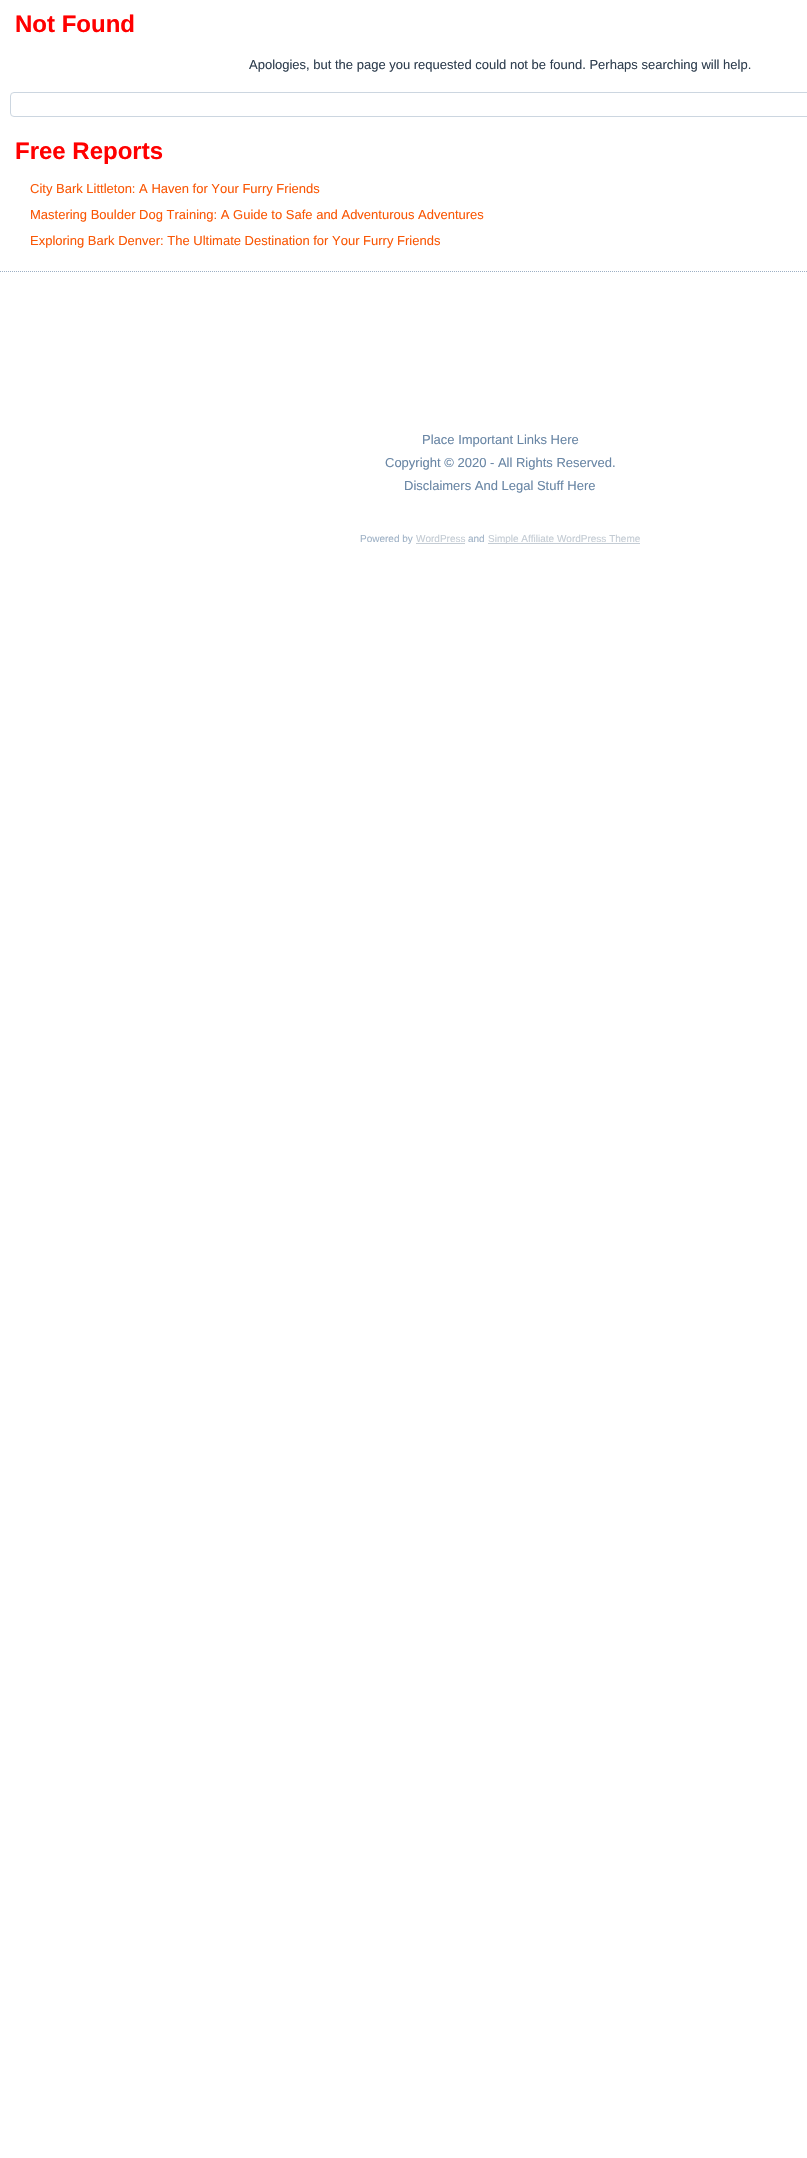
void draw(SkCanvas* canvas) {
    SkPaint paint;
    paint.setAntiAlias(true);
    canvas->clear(0xFFFFFFFF);
    SkFont font1(fontMgr->matchFamilyStyle("Liberation Sans", SkFontStyle::Bold()), 24);
    font1.setSubpixel(true);
    paint.setColor(0xFFFF0000);
    canvas->drawString("Not Found", 15, 32, font1, paint);
    SkFont font2(fontMgr->matchFamilyStyle("Liberation Sans", SkFontStyle::Normal()), 13);
    font2.setSubpixel(true);
    paint.setColor(0xFF303F50);
    canvas->drawString("Apologies, but the page you requested could not be found. Perhaps searching will help.", 249, 69, font2, paint);
    paint.setStyle(SkPaint::kStroke_Style);
    paint.setStrokeWidth(1);
    paint.setColor(0xFFCCD6E0);
    canvas->drawRoundRect(SkRect::MakeXYWH(10.5f, 92.5f, 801, 24), 3.5f, 3.5f, paint);
    paint.setStyle(SkPaint::kFill_Style);
    paint.setColor(0xFFFF0000);
    canvas->drawString("Free Reports", 15, 159, font1, paint);
    paint.setColor(0xFFFA5705);
    canvas->drawString("City Bark Littleton: A Haven for Your Furry Friends", 30, 193, font2, paint);
    canvas->drawString("Mastering Boulder Dog Training: A Guide to Safe and Adventurous Adventures", 30, 219, font2, paint);
    canvas->drawString("Exploring Bark Denver: The Ultimate Destination for Your Furry Friends", 30, 245, font2, paint);
    paint.setStyle(SkPaint::kStroke_Style);
    paint.setColor(0xFF9CAFC4);
    paint.setPathEffect(SkDashPathEffect::Make({{1, 1}}, 0));
    canvas->drawPath(SkPathBuilder().moveTo(0, 271.5f).lineTo(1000, 271.5f).detach(), paint);
    paint.setPathEffect(nullptr);
    paint.setStyle(SkPaint::kFill_Style);
    paint.setColor(0xFF6986A5);
    canvas->drawString("Place Important Links Here", 422, 444, font2, paint);
    canvas->drawString("Copyright © 2020 - All Rights Reserved.", 385, 467, font2, paint);
    canvas->drawString("Disclaimers And Legal Stuff Here", 404, 490, font2, paint);
    SkFont font3(fontMgr->matchFamilyStyle("Liberation Sans", SkFontStyle::Normal()), 10);
    font3.setSubpixel(true);
    paint.setColor(0xFF9FB2C6);
    canvas->drawString("Powered by", 360, 542, font3, paint);
    paint.setColor(0xFFC4CCD4);
    canvas->drawString("WordPress", 416, 542, font3, paint);
    canvas->drawRect(SkRect::MakeXYWH(416, 543, 49, 1), paint);
    paint.setColor(0xFF9FB2C6);
    canvas->drawString("and", 468, 542, font3, paint);
    paint.setColor(0xFFC4CCD4);
    canvas->drawRect(SkRect::MakeXYWH(488, 543, 152, 1), paint);
    canvas->drawString("Simple Affiliate WordPress Theme", 488, 542, font3, paint);
}
